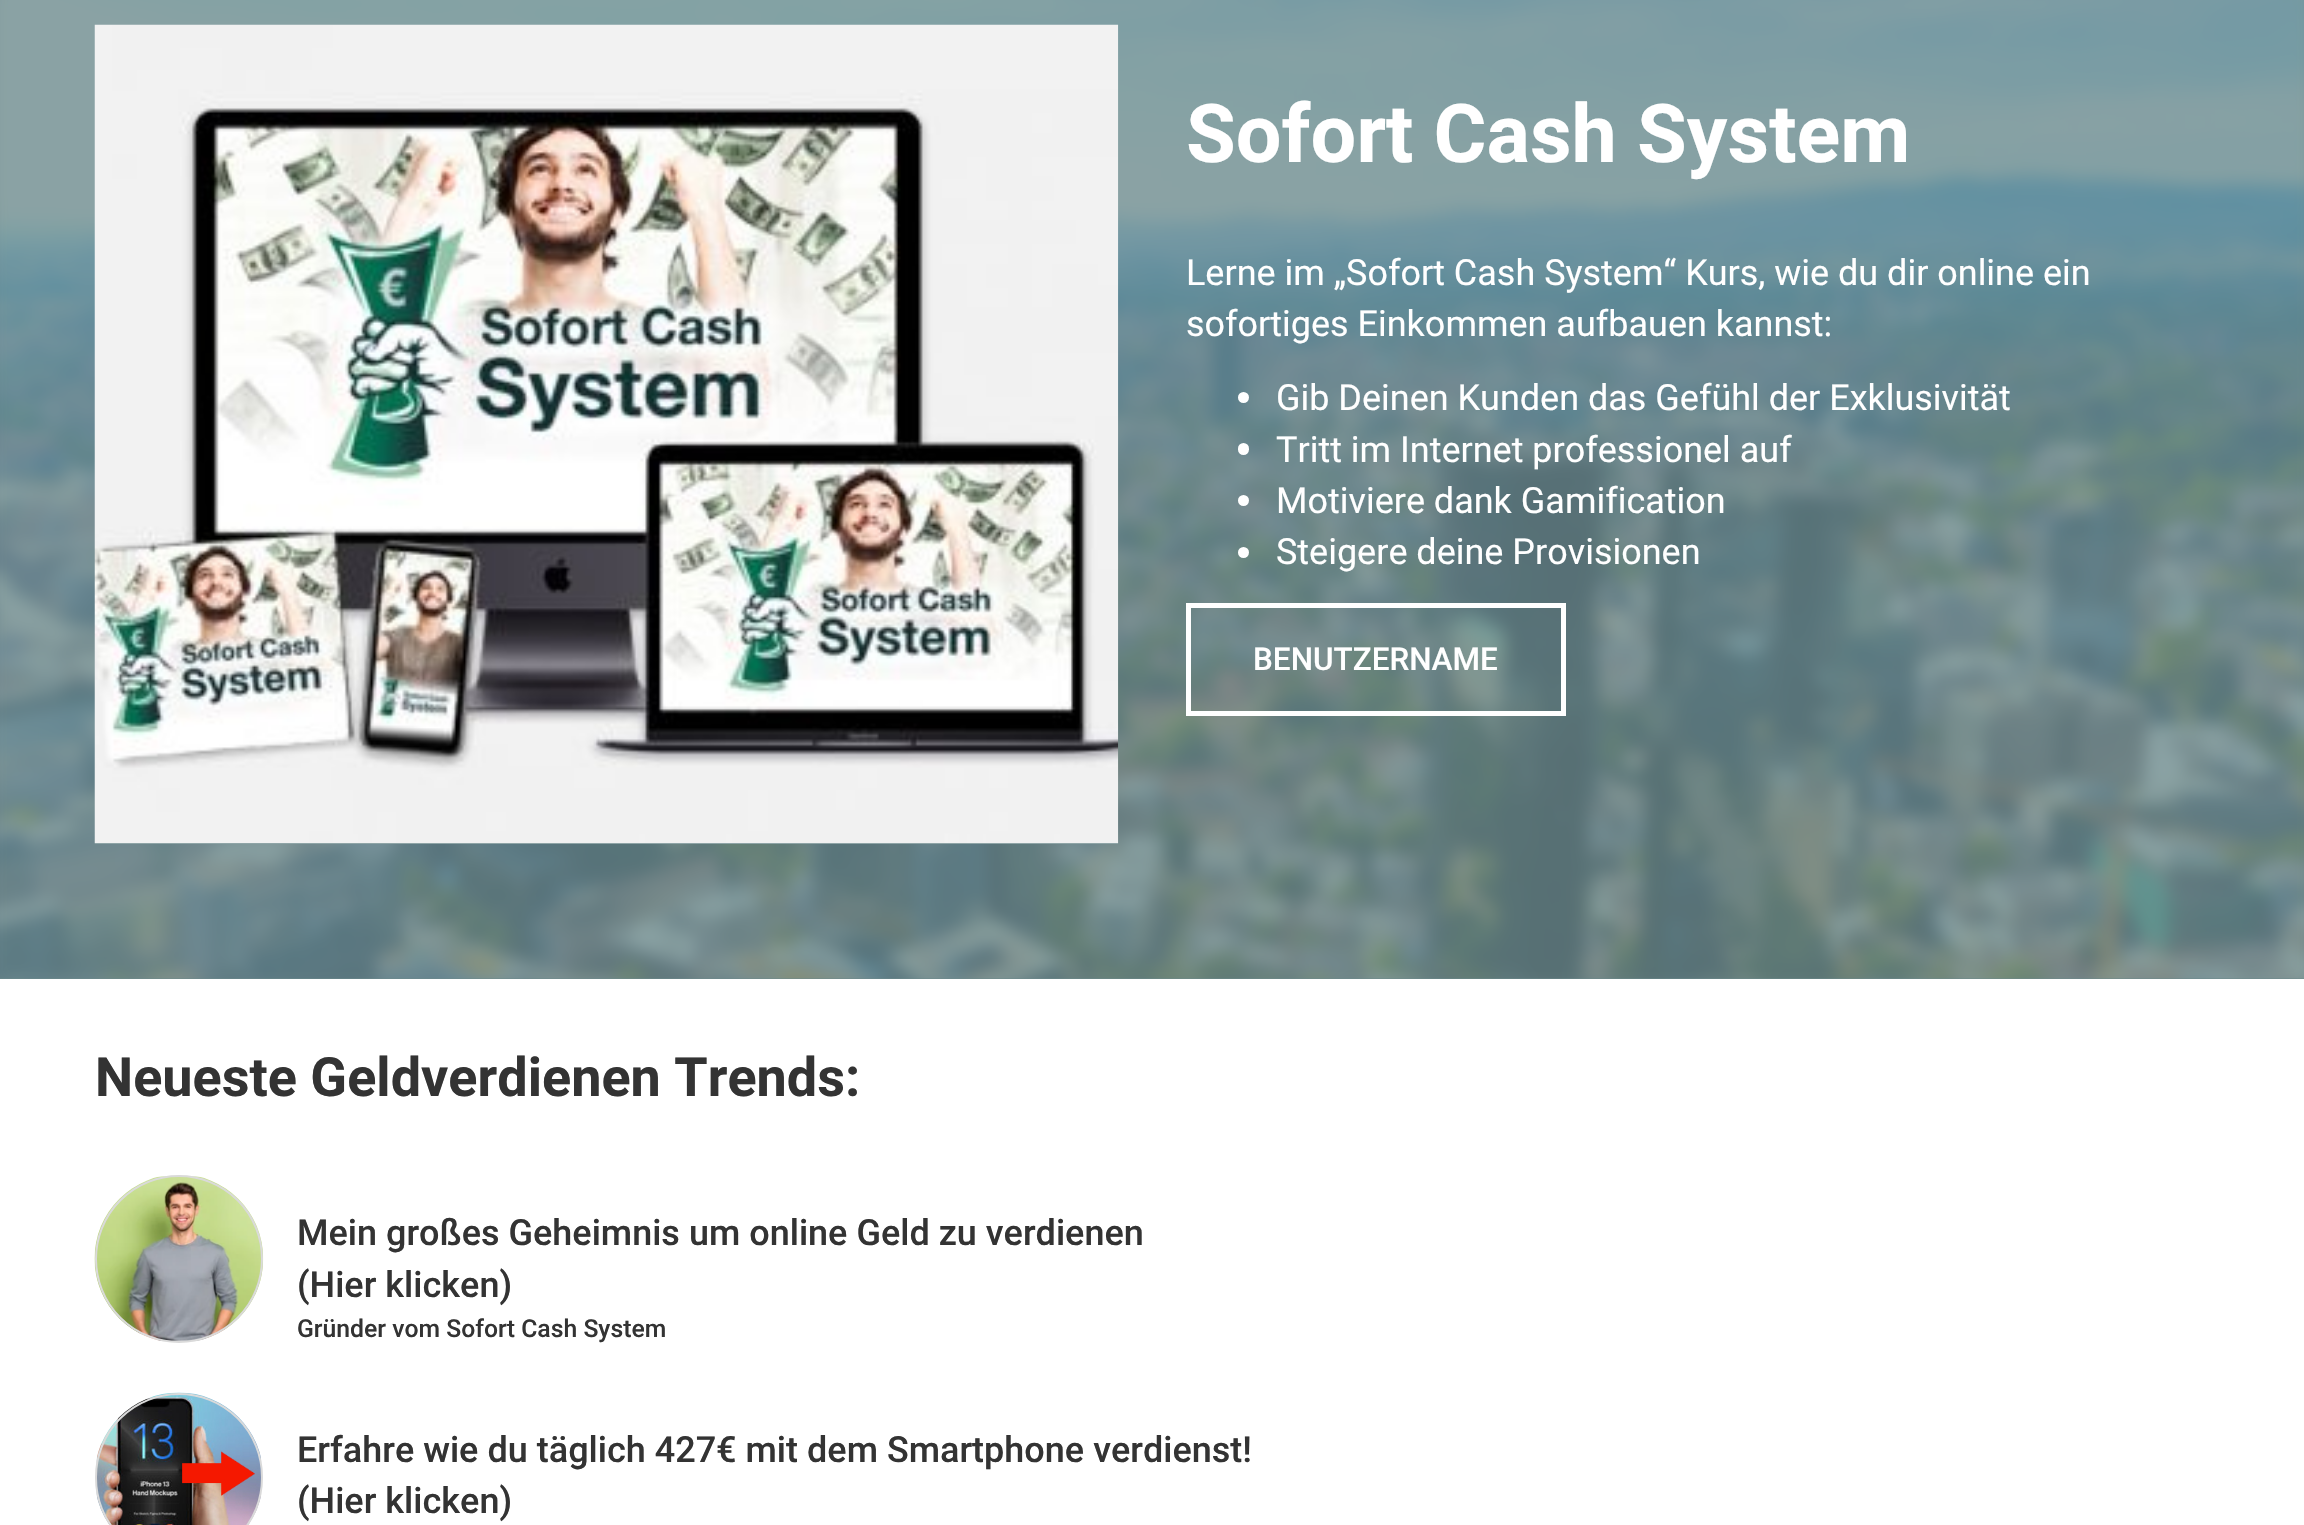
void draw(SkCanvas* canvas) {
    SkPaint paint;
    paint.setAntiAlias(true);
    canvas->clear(0xFFFFFFFF);
    paint.setColor(0xFF6D8B8D);
    canvas->drawRect(SkRect::MakeXYWH(0, 0, 2304, 979), paint);
    canvas->drawImageRect(SkImages::DeferredFromEncodedData(SkData::MakeFromFileName("img1.png")), SkRect::MakeXYWH(0, 0, 2304, 979), SkSamplingOptions());
    canvas->drawRect(SkRect::MakeXYWH(95, 843, 1023, 1), paint);
    canvas->drawImageRect(SkImages::DeferredFromEncodedData(SkData::MakeFromFileName("img2.png")), SkRect::MakeXYWH(94, 24, 1025, 820), SkSamplingOptions());
    SkFont font1(fontMgr->matchFamilyStyle("Roboto", SkFontStyle::Bold()), 81);
    font1.setSubpixel(true);
    paint.setColor(0xFFFFFFFF);
    canvas->drawString("Sofort Cash System", 1186, 162, font1, paint);
    SkFont font2(fontMgr->matchFamilyStyle("Roboto", SkFontStyle::Normal()), 36);
    font2.setSubpixel(true);
    canvas->drawString("Lerne im „Sofort Cash System“ Kurs, wie du dir online ein", 1186, 285, font2, paint);
    canvas->drawString("sofortiges Einkommen aufbauen kannst:", 1186, 336, font2, paint);
    canvas->drawCircle(1243.5f, 397.5f, 5.5f, paint);
    canvas->drawString("Gib Deinen Kunden das Gefühl der Exklusivität", 1276, 410, font2, paint);
    canvas->drawRoundRect(SkRect::MakeXYWH(1238, 443, 11, 12), 5.5f, 5.5f, paint);
    canvas->drawString("Tritt im Internet professionel auf", 1276, 462, font2, paint);
    canvas->drawCircle(1243.5f, 500.5f, 5.5f, paint);
    canvas->drawString("Motiviere dank Gamification", 1276, 513, font2, paint);
    canvas->drawCircle(1243.5f, 552.5f, 5.5f, paint);
    canvas->drawString("Steigere deine Provisionen", 1276, 564, font2, paint);
    paint.setStyle(SkPaint::kStroke_Style);
    paint.setStrokeWidth(5);
    canvas->drawRect(SkRect::MakeXYWH(1188.5f, 605.5f, 375, 108), paint);
    SkFont font3(fontMgr->matchFamilyStyle("Roboto", SkFontStyle(500, SkFontStyle::kNormal_Width, SkFontStyle::kUpright_Slant)), 31.5f);
    font3.setSubpixel(true);
    paint.setStyle(SkPaint::kFill_Style);
    canvas->drawString("BENUTZERNAME", 1253, 670, font3, paint);
    SkFont font4(fontMgr->matchFamilyStyle("Roboto", SkFontStyle::Bold()), 54);
    font4.setSubpixel(true);
    paint.setColor(0xFF333333);
    canvas->drawString("Neueste Geldverdienen Trends:", 95, 1096, font4, paint);
    canvas->drawImageRect(SkImages::DeferredFromEncodedData(SkData::MakeFromFileName("img3.png")), SkRect::MakeXYWH(94, 1176, 170, 165), SkSamplingOptions());
    paint.setStyle(SkPaint::kStroke_Style);
    paint.setStrokeWidth(2);
    paint.setColor(0xFFDADADA);
    canvas->drawCircle(179, 1259, 83, paint);
    SkFont font5(fontMgr->matchFamilyStyle("Roboto", SkFontStyle(500, SkFontStyle::kNormal_Width, SkFontStyle::kUpright_Slant)), 36);
    font5.setSubpixel(true);
    paint.setStyle(SkPaint::kFill_Style);
    paint.setColor(0xFF333333);
    canvas->drawString("Mein großes Geheimnis um online Geld zu verdienen", 297, 1245, font5, paint);
    canvas->drawString("(Hier klicken)", 297, 1297, font5, paint);
    SkFont font6(fontMgr->matchFamilyStyle("Roboto", SkFontStyle(500, SkFontStyle::kNormal_Width, SkFontStyle::kUpright_Slant)), 24.75f);
    font6.setSubpixel(true);
    canvas->drawString("Gründer vom Sofort Cash System", 297, 1337, font6, paint);
    canvas->drawImageRect(SkImages::DeferredFromEncodedData(SkData::MakeFromFileName("img4.png")), SkRect::MakeXYWH(96, 1392, 165, 133), SkSamplingOptions());
    paint.setStyle(SkPaint::kStroke_Style);
    paint.setColor(0xFFDADADA);
    canvas->drawRoundRect(SkRect::MakeXYWH(96, 1394, 166, 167), 83, 83, paint);
    paint.setStyle(SkPaint::kFill_Style);
    paint.setColor(0xFF333333);
    canvas->drawString("Erfahre wie du täglich 427€ mit dem Smartphone verdienst!", 297, 1462, font5, paint);
    canvas->drawString("(Hier klicken)", 297, 1513, font5, paint);
}
